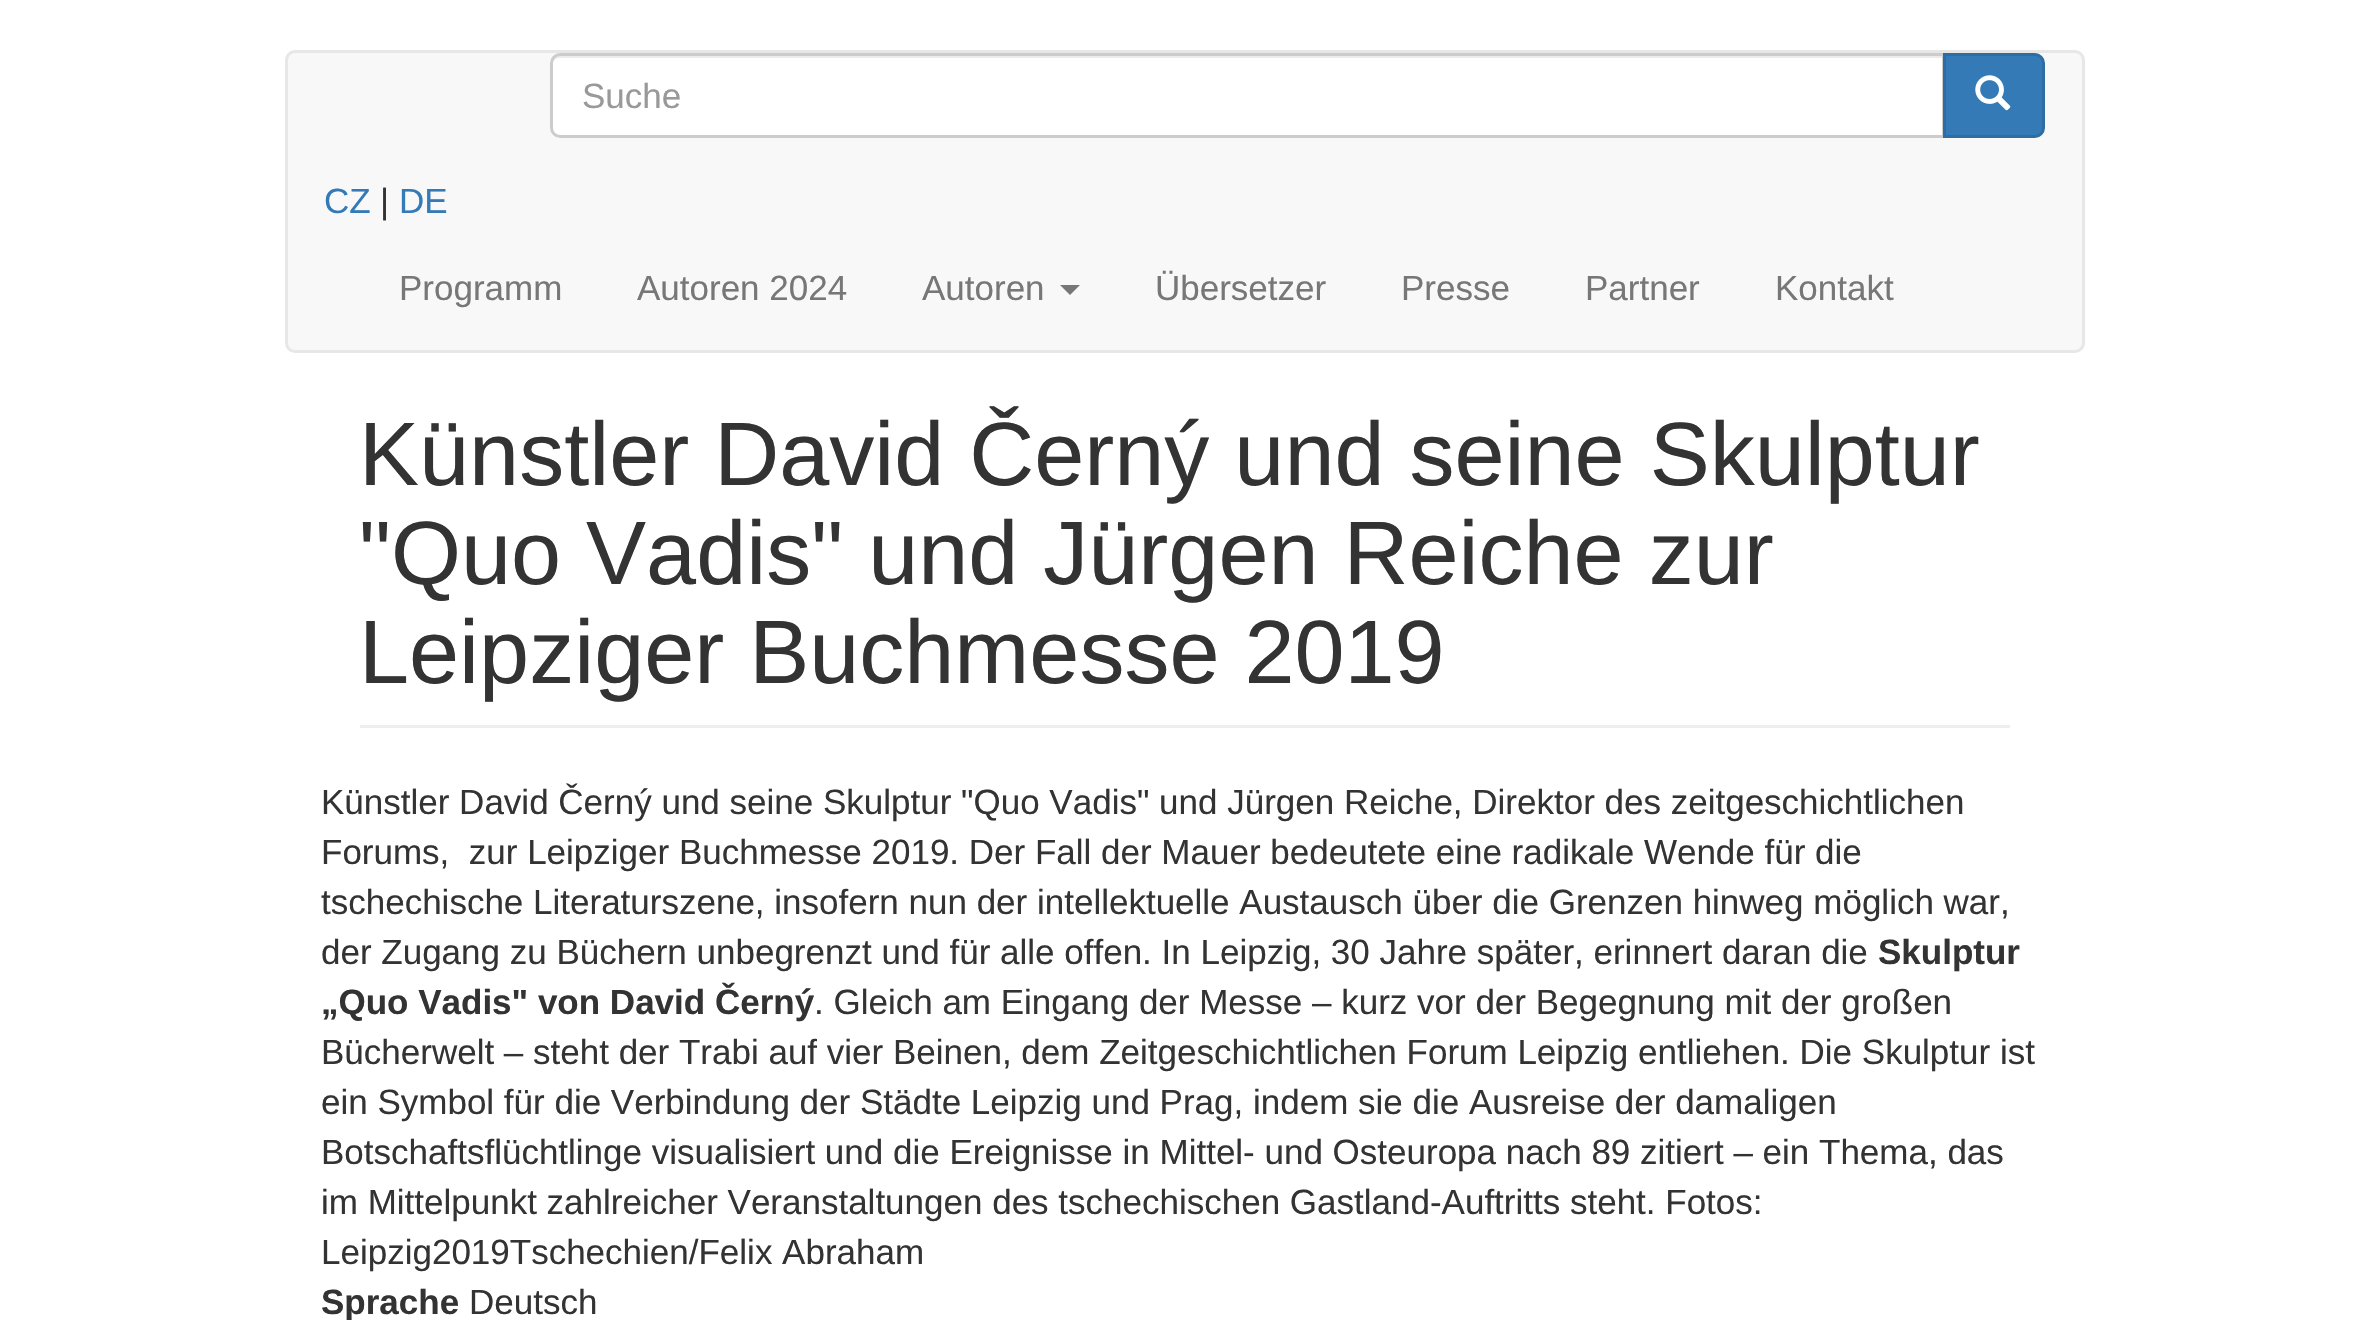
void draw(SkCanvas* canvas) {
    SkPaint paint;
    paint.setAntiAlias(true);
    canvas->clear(0xFFFFFFFF);
    paint.setColor(0xFFF8F8F8);
    canvas->drawRoundRect(SkRect::MakeXYWH(286.5f, 51.5f, 1797, 300), 8.5f, 8.5f, paint);
    paint.setStyle(SkPaint::kStroke_Style);
    paint.setStrokeWidth(3);
    paint.setColor(0xFFE7E7E7);
    canvas->drawRoundRect(SkRect::MakeXYWH(286.5f, 51.5f, 1797, 300), 8.5f, 8.5f, paint);
    paint.setStyle(SkPaint::kFill_Style);
    paint.setColor(0xFFFFFFFF);
    canvas->drawPath(SkPathBuilder().moveTo(560, 53).lineTo(1945, 53).lineTo(1945, 138).lineTo(560, 138).cubicTo(554.5f, 138, 550, 133.5f, 550, 128).lineTo(550, 63).cubicTo(550, 57.5f, 554.5f, 53, 560, 53).close().detach(), paint);
    paint.setColor(0xFFECECEC);
    canvas->drawPath(SkPathBuilder().moveTo(560, 58).lineTo(1942, 58).lineTo(1942, 135).lineTo(1943, 135).lineTo(1943, 55).lineTo(561, 55).cubicTo(557, 55, 554, 58, 553, 61).cubicTo(555, 59, 557, 58, 560, 58).close().detach(), paint);
    paint.setStyle(SkPaint::kStroke_Style);
    paint.setColor(0xFFCCCCCC);
    canvas->drawPath(SkPathBuilder().moveTo(560, 54.5f).lineTo(1943.5f, 54.5f).lineTo(1943.5f, 136.5f).lineTo(560, 136.5f).cubicTo(555.5f, 136.5f, 551.5f, 132.5f, 551.5f, 128).lineTo(551.5f, 63).cubicTo(551.5f, 58.5f, 555.5f, 54.5f, 560, 54.5f).close().detach(), paint);
    SkFont font1(fontMgr->matchFamilyStyle("Liberation Sans", SkFontStyle::Normal()), 35);
    font1.setSubpixel(true);
    paint.setStyle(SkPaint::kFill_Style);
    paint.setColor(0xFF999999);
    canvas->drawString("Suche", 582, 108, font1, paint);
    paint.setColor(0xFF337AB7);
    canvas->drawPath(SkPathBuilder().moveTo(1944.5f, 54.5f).lineTo(2035, 54.5f).cubicTo(2039.5f, 54.5f, 2043.5f, 58.5f, 2043.5f, 63).lineTo(2043.5f, 128).cubicTo(2043.5f, 132.5f, 2039.5f, 136.5f, 2035, 136.5f).lineTo(1944.5f, 136.5f).close().detach(), paint);
    paint.setStyle(SkPaint::kStroke_Style);
    paint.setColor(0xFF2E6DA4);
    canvas->drawPath(SkPathBuilder().moveTo(1944.5f, 54.5f).lineTo(2035, 54.5f).cubicTo(2039.5f, 54.5f, 2043.5f, 58.5f, 2043.5f, 63).lineTo(2043.5f, 128).cubicTo(2043.5f, 132.5f, 2039.5f, 136.5f, 2035, 136.5f).lineTo(1944.5f, 136.5f).close().detach(), paint);
    canvas->drawImageRect(SkImages::DeferredFromEncodedData(SkData::MakeFromFileName("img1.png")), SkRect::MakeXYWH(1975, 75, 36, 36), SkSamplingOptions());
    paint.setStyle(SkPaint::kFill_Style);
    paint.setColor(0xFF337AB7);
    canvas->drawString("CZ", 324, 213, font1, paint);
    paint.setColor(0xFF333333);
    canvas->drawString("|", 380, 213, font1, paint);
    paint.setColor(0xFF337AB7);
    canvas->drawString("DE", 399, 213, font1, paint);
    paint.setColor(0xFF777777);
    canvas->drawString("Programm", 399, 300, font1, paint);
    canvas->drawString("Autoren 2024", 637, 300, font1, paint);
    canvas->drawString("Autoren", 922, 300, font1, paint);
    canvas->drawPath(SkPathBuilder().moveTo(1060, 285).lineTo(1080, 285).lineTo(1070, 295).close().detach(), paint);
    canvas->drawString("Übersetzer", 1155, 300, font1, paint);
    canvas->drawString("Presse", 1401, 300, font1, paint);
    canvas->drawString("Partner", 1585, 300, font1, paint);
    canvas->drawString("Kontakt", 1775, 300, font1, paint);
    paint.setColor(0xFFEEEEEE);
    canvas->drawRect(SkRect::MakeXYWH(360, 725, 1650, 3), paint);
    SkFont font2(fontMgr->matchFamilyStyle("Liberation Sans", SkFontStyle::Normal()), 90);
    font2.setSubpixel(true);
    paint.setColor(0xFF333333);
    canvas->drawString("Künstler David Černý und seine Skulptur", 359, 485, font2, paint);
    canvas->drawString("\"Quo Vadis\" und Jürgen Reiche zur", 359, 584, font2, paint);
    canvas->drawString("Leipziger Buchmesse 2019", 359, 683, font2, paint);
    canvas->drawString("Künstler David Černý und seine Skulptur \"Quo Vadis\" und Jürgen Reiche, Direktor des zeitgeschichtlichen", 321, 814, font1, paint);
    canvas->drawString("Forums,  zur Leipziger Buchmesse 2019. Der Fall der Mauer bedeutete eine radikale Wende für die", 321, 864, font1, paint);
    canvas->drawString("tschechische Literaturszene, insofern nun der intellektuelle Austausch über die Grenzen hinweg möglich war,", 321, 914, font1, paint);
    canvas->drawString("der Zugang zu Büchern unbegrenzt und für alle offen. In Leipzig, 30 Jahre später, erinnert daran die", 321, 964, font1, paint);
    SkFont font3(fontMgr->matchFamilyStyle("Liberation Sans", SkFontStyle::Bold()), 35);
    font3.setSubpixel(true);
    canvas->drawString("Skulptur", 1878, 964, font3, paint);
    canvas->drawString("„Quo Vadis\" von David Černý", 321, 1014, font3, paint);
    canvas->drawString(". Gleich am Eingang der Messe – kurz vor der Begegnung mit der großen", 814, 1014, font1, paint);
    canvas->drawString("Bücherwelt – steht der Trabi auf vier Beinen, dem Zeitgeschichtlichen Forum Leipzig entliehen. Die Skulptur ist", 321, 1064, font1, paint);
    canvas->drawString("ein Symbol für die Verbindung der Städte Leipzig und Prag, indem sie die Ausreise der damaligen", 321, 1114, font1, paint);
    canvas->drawString("Botschaftsflüchtlinge visualisiert und die Ereignisse in Mittel- und Osteuropa nach 89 zitiert – ein Thema, das", 321, 1164, font1, paint);
    canvas->drawString("im Mittelpunkt zahlreicher Veranstaltungen des tschechischen Gastland-Auftritts steht. Fotos:", 321, 1214, font1, paint);
    canvas->drawString("Leipzig2019Tschechien/Felix Abraham", 321, 1264, font1, paint);
    canvas->drawString("Sprache", 321, 1314, font3, paint);
    canvas->drawString("Deutsch", 469, 1314, font1, paint);
}
